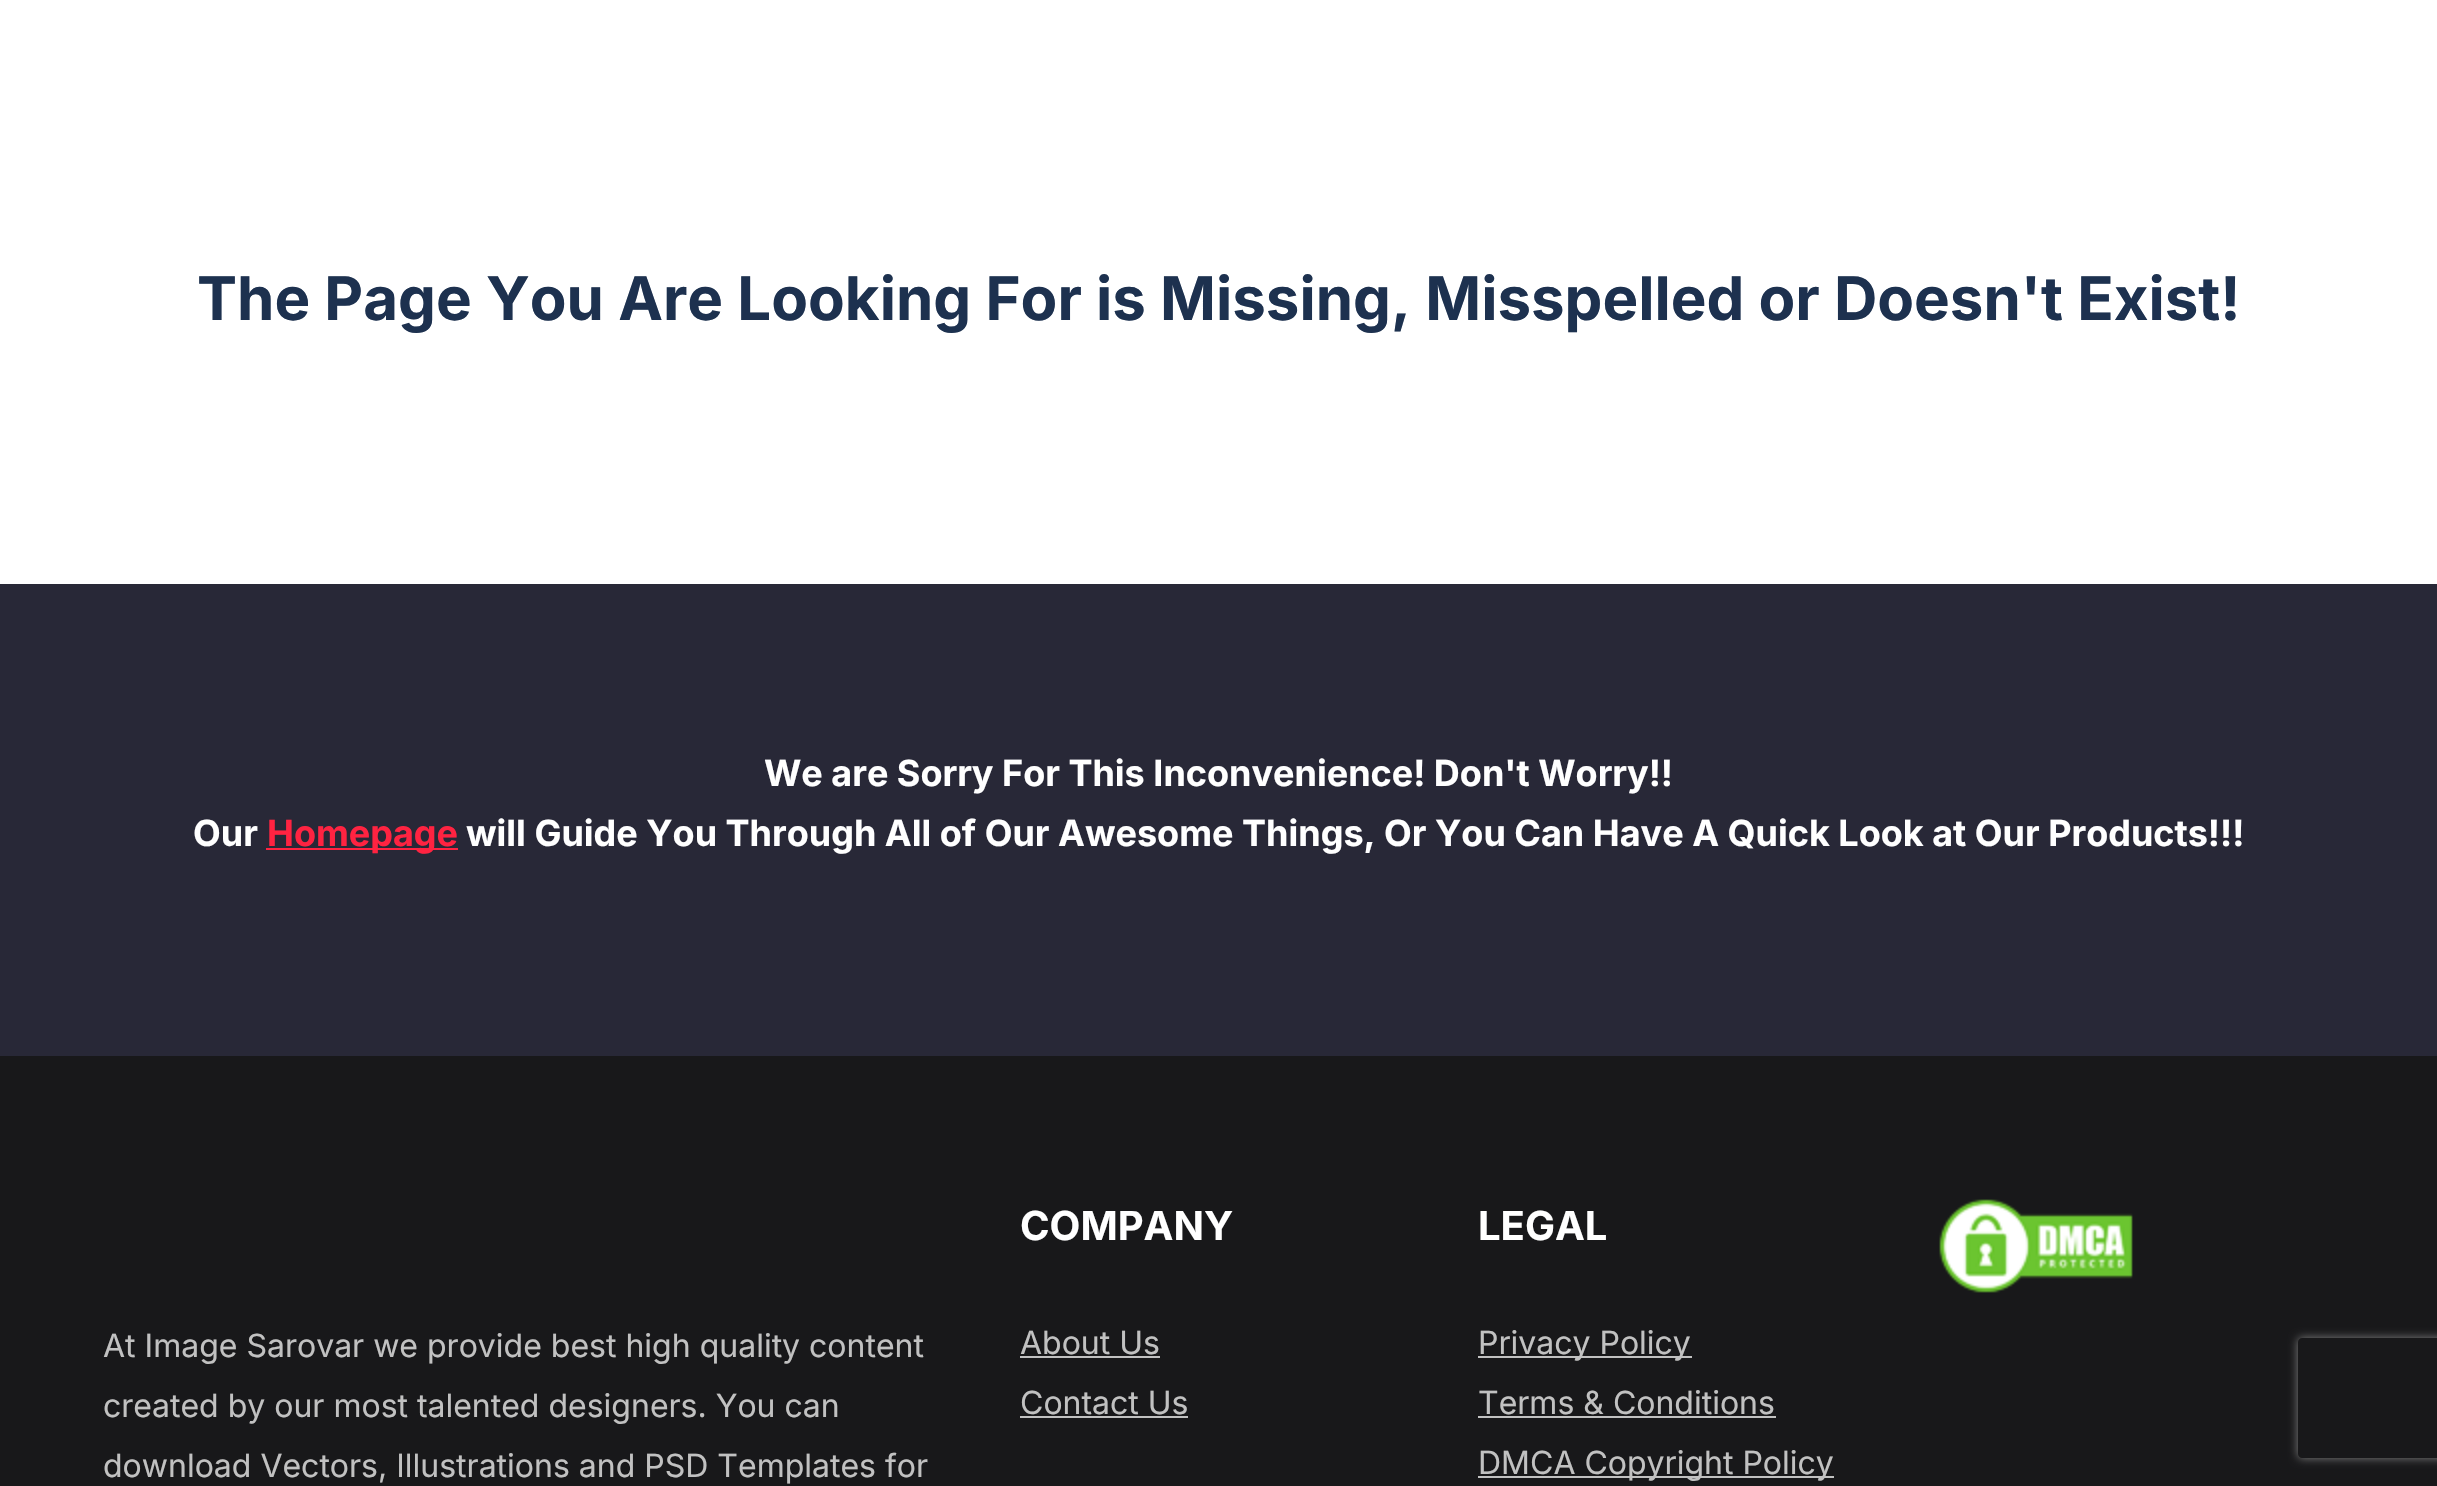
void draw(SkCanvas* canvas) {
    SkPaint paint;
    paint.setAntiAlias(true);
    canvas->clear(0xFFFFFFFF);
    SkFont font1(fontMgr->matchFamilyStyle("Inter", SkFontStyle::Bold()), 60);
    font1.setSubpixel(true);
    paint.setColor(0xFF1D314F);
    canvas->drawString("The Page You Are Looking For is Missing, Misspelled or Doesn't Exist!", 197, 320, font1, paint);
    paint.setColor(0xFF282837);
    canvas->drawRect(SkRect::MakeXYWH(0, 584, 2437, 472), paint);
    SkFont font2(fontMgr->matchFamilyStyle("Inter", SkFontStyle::Bold()), 36);
    font2.setSubpixel(true);
    paint.setColor(0xFFFFFFFF);
    canvas->drawString("We are Sorry For This Inconvenience! Don't Worry!!", 764, 786, font2, paint);
    canvas->drawString("Our", 193, 846, font2, paint);
    paint.setColor(0xFFFF2341);
    canvas->drawRect(SkRect::MakeXYWH(266, 848, 192, 2), paint);
    canvas->drawString("Homepage", 267, 846, font2, paint);
    paint.setColor(0xFFFFFFFF);
    canvas->drawString("will Guide You Through All of Our Awesome Things, Or You Can Have A Quick Look at Our Products!!!", 466, 846, font2, paint);
    paint.setColor(0xFF18181A);
    canvas->drawRect(SkRect::MakeXYWH(0, 1056, 2437, 430), paint);
    SkFont font3(fontMgr->matchFamilyStyle("Inter", SkFontStyle::Normal()), 32);
    font3.setSubpixel(true);
    paint.setColor(0xFFC1C1C1);
    canvas->drawString("At Image Sarovar we provide best high quality content", 103, 1357, font3, paint);
    canvas->drawString("created by our most talented designers. You can", 103, 1417, font3, paint);
    canvas->drawString("download Vectors, Illustrations and PSD Templates for", 103, 1477, font3, paint);
    SkFont font4(fontMgr->matchFamilyStyle("Inter", SkFontStyle::Bold()), 40);
    font4.setSubpixel(true);
    paint.setColor(0xFFFFFFFF);
    canvas->drawString("COMPANY", 1020, 1240, font4, paint);
    paint.setColor(0xFFC1C1C1);
    canvas->drawString("About Us", 1020, 1354, font3, paint);
    canvas->drawRect(SkRect::MakeXYWH(1020, 1356, 140, 2), paint);
    canvas->drawString("Contact Us", 1020, 1414, font3, paint);
    canvas->drawRect(SkRect::MakeXYWH(1020, 1416, 168, 2), paint);
    paint.setColor(0xFFFFFFFF);
    canvas->drawString("LEGAL", 1478, 1240, font4, paint);
    paint.setColor(0xFFC1C1C1);
    canvas->drawRect(SkRect::MakeXYWH(1478, 1356, 214, 2), paint);
    canvas->drawString("Privacy Policy", 1478, 1354, font3, paint);
    canvas->drawString("Terms & Conditions", 1478, 1414, font3, paint);
    canvas->drawRect(SkRect::MakeXYWH(1478, 1416, 298, 2), paint);
    canvas->drawRect(SkRect::MakeXYWH(1478, 1476, 356, 2), paint);
    canvas->drawString("DMCA Copyright Policy", 1478, 1474, font3, paint);
    canvas->drawImageRect(SkImages::DeferredFromEncodedData(SkData::MakeFromFileName("img1.png")), SkRect::MakeXYWH(1939, 1199, 194, 94), SkSamplingOptions());
    canvas->save();
    canvas->clipPath(SkPathBuilder(SkPathFillType::kEvenOdd).moveTo(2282, 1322).lineTo(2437, 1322).lineTo(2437, 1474).lineTo(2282, 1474).close().moveTo(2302, 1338).lineTo(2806, 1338).cubicTo(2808, 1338, 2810, 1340, 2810, 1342).lineTo(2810, 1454).cubicTo(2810, 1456, 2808, 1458, 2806, 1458).lineTo(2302, 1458).cubicTo(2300, 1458, 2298, 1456, 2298, 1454).lineTo(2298, 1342).cubicTo(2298, 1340, 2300, 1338, 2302, 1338).close().detach(), true);
    paint.setColor(0xFF808080);
    paint.setMaskFilter(SkMaskFilter::MakeBlur(kNormal_SkBlurStyle, 5));
    canvas->drawRoundRect(SkRect::MakeXYWH(2298, 1338, 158, 120), 4, 4, paint);
    paint.setMaskFilter(nullptr);
    canvas->restore();
}
